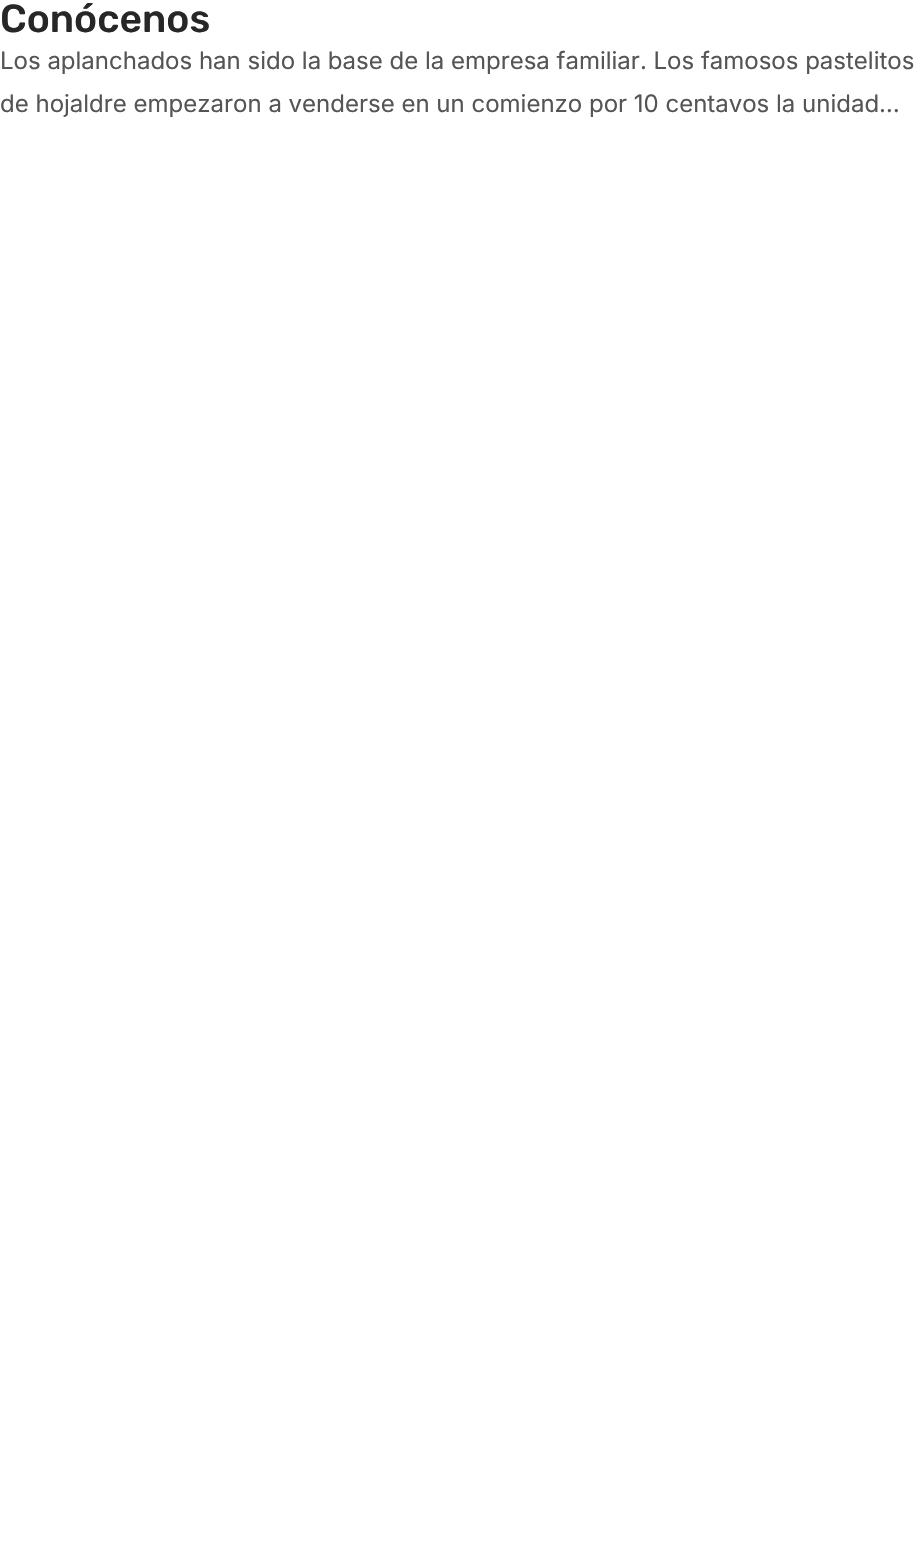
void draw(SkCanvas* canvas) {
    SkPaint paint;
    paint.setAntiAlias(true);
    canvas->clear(0xFFFFFFFF);
    SkFont font1(fontMgr->matchFamilyStyle("Rubik", SkFontStyle(500, SkFontStyle::kNormal_Width, SkFontStyle::kUpright_Slant)), 39);
    font1.setSubpixel(true);
    paint.setColor(0xFF272727);
    canvas->drawString("Conócenos", 0, 32, font1, paint);
    SkFont font2(fontMgr->matchFamilyStyle("Inter", SkFontStyle::Normal()), 24);
    font2.setSubpixel(true);
    paint.setColor(0xFF555555);
    canvas->drawString("Los aplanchados han sido la base de la empresa familiar. Los famosos pastelitos", 0, 69, font2, paint);
    canvas->drawString("de hojaldre empezaron a venderse en un comienzo por 10 centavos la unidad…", 0, 112, font2, paint);
}
